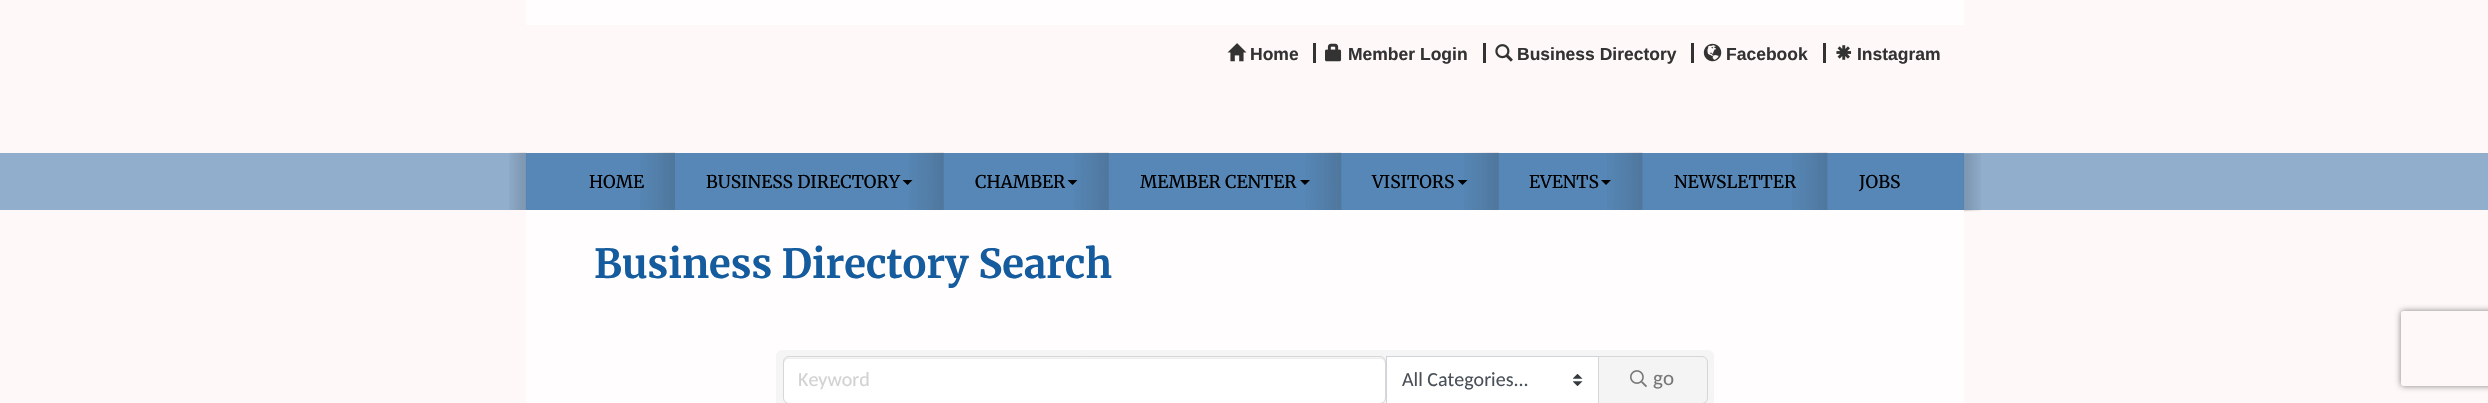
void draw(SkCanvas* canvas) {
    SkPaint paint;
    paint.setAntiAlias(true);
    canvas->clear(0xFFFFF8F8);
    paint.setColor(0xFFFFFDFD);
    canvas->drawRect(SkRect::MakeXYWH(526, 0, 1438, 25), paint);
    canvas->drawImageRect(SkImages::DeferredFromEncodedData(SkData::MakeFromFileName("img1.png")), SkRect::MakeXYWH(1227, 43, 20, 19), SkSamplingOptions());
    SkFont font1(fontMgr->matchFamilyStyle("Liberation Sans", SkFontStyle::Bold()), 17.5f);
    font1.setSubpixel(true);
    paint.setColor(0xFF333333);
    canvas->drawString("Home", 1250, 60, font1, paint);
    canvas->drawRect(SkRect::MakeXYWH(1313, 43, 3, 20), paint);
    canvas->drawImageRect(SkImages::DeferredFromEncodedData(SkData::MakeFromFileName("img2.png")), SkRect::MakeXYWH(1325, 43, 17, 19), SkSamplingOptions());
    canvas->drawString("Member Login", 1348, 60, font1, paint);
    canvas->drawRect(SkRect::MakeXYWH(1483, 43, 3, 20), paint);
    canvas->drawImageRect(SkImages::DeferredFromEncodedData(SkData::MakeFromFileName("img3.png")), SkRect::MakeXYWH(1495, 44, 18, 18), SkSamplingOptions());
    canvas->drawString("Business Directory", 1517, 60, font1, paint);
    canvas->drawRect(SkRect::MakeXYWH(1691, 43, 3, 20), paint);
    canvas->drawImageRect(SkImages::DeferredFromEncodedData(SkData::MakeFromFileName("img4.png")), SkRect::MakeXYWH(1703, 43, 19, 19), SkSamplingOptions());
    canvas->drawString("Facebook", 1726, 60, font1, paint);
    canvas->drawRect(SkRect::MakeXYWH(1823, 43, 3, 20), paint);
    canvas->drawImageRect(SkImages::DeferredFromEncodedData(SkData::MakeFromFileName("img5.png")), SkRect::MakeXYWH(1836, 45, 16, 15), SkSamplingOptions());
    canvas->drawString("Instagram", 1857, 60, font1, paint);
    paint.setColor(0xFF91AECD);
    canvas->drawRect(SkRect::MakeXYWH(0, 153, 2488, 57), paint);
    canvas->drawImageRect(SkImages::DeferredFromEncodedData(SkData::MakeFromFileName("img6.png")), SkRect::MakeXYWH(509, 152, 18, 58), SkSamplingOptions());
    paint.setColor(0xFFFFFDFD);
    canvas->drawRect(SkRect::MakeXYWH(526, 210, 1438, 193), paint);
    canvas->drawImageRect(SkImages::DeferredFromEncodedData(SkData::MakeFromFileName("img13.png")), SkRect::MakeXYWH(1963, 153, 18, 59), SkSamplingOptions());
    paint.setColor(0x78145B9D);
    canvas->drawRect(SkRect::MakeXYWH(526, 153, 1438, 57), paint);
    canvas->drawImageRect(SkImages::DeferredFromEncodedData(SkData::MakeFromFileName("img7.png")), SkRect::MakeXYWH(640, 152, 35, 58), SkSamplingOptions());
    SkFont font2(fontMgr->matchFamilyStyle("Merriweather", SkFontStyle::Normal()), 17.5f);
    font2.setSubpixel(true);
    paint.setColor(0xFF000000);
    canvas->drawString("HOME", 589, 188, font2, paint);
    canvas->drawImageRect(SkImages::DeferredFromEncodedData(SkData::MakeFromFileName("img8.png")), SkRect::MakeXYWH(909, 152, 35, 58), SkSamplingOptions());
    canvas->drawString("BUSINESS DIRECTORY", 706, 188, font2, paint);
    canvas->drawPath(SkPathBuilder().moveTo(902.5f, 180).lineTo(912.5f, 180).lineTo(907.5f, 185).close().detach(), paint);
    canvas->drawImageRect(SkImages::DeferredFromEncodedData(SkData::MakeFromFileName("img8.png")), SkRect::MakeXYWH(1074, 152, 35, 58), SkSamplingOptions());
    canvas->drawString("CHAMBER", 975, 188, font2, paint);
    canvas->drawPath(SkPathBuilder().moveTo(1067.5f, 180).lineTo(1077.5f, 180).lineTo(1072.5f, 185).close().detach(), paint);
    canvas->drawImageRect(SkImages::DeferredFromEncodedData(SkData::MakeFromFileName("img9.png")), SkRect::MakeXYWH(1306, 152, 36, 58), SkSamplingOptions());
    canvas->drawString("MEMBER CENTER", 1140, 188, font2, paint);
    canvas->drawPath(SkPathBuilder().moveTo(1300, 180).lineTo(1310, 180).lineTo(1305, 185).close().detach(), paint);
    canvas->drawImageRect(SkImages::DeferredFromEncodedData(SkData::MakeFromFileName("img10.png")), SkRect::MakeXYWH(1464, 152, 35, 58), SkSamplingOptions());
    canvas->drawString("VISITORS", 1372, 188, font2, paint);
    canvas->drawPath(SkPathBuilder().moveTo(1457.5f, 180).lineTo(1467.5f, 180).lineTo(1462.5f, 185).close().detach(), paint);
    canvas->drawImageRect(SkImages::DeferredFromEncodedData(SkData::MakeFromFileName("img11.png")), SkRect::MakeXYWH(1607, 152, 36, 58), SkSamplingOptions());
    canvas->drawString("EVENTS", 1529, 188, font2, paint);
    canvas->drawPath(SkPathBuilder().moveTo(1601, 180).lineTo(1611, 180).lineTo(1606, 185).close().detach(), paint);
    canvas->drawImageRect(SkImages::DeferredFromEncodedData(SkData::MakeFromFileName("img12.png")), SkRect::MakeXYWH(1792, 152, 36, 58), SkSamplingOptions());
    canvas->drawString("NEWSLETTER", 1674, 188, font2, paint);
    canvas->drawString("JOBS", 1859, 188, font2, paint);
    SkFont font3(fontMgr->matchFamilyStyle("Merriweather", SkFontStyle::Bold()), 40);
    font3.setSubpixel(true);
    paint.setColor(0xFF145C9E);
    canvas->drawString("Business Directory Search", 594, 278, font3, paint);
    paint.setColor(0xFFF5F5F5);
    canvas->drawRoundRect(SkRect::MakeXYWH(776, 350, 938, 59), 6, 6, paint);
    paint.setColor(0xFFFFFFFF);
    canvas->drawRoundRect(SkRect::MakeXYWH(784, 358, 601, 45), 5, 5, paint);
    paint.setColor(0x12000000);
    canvas->drawPath(SkPathBuilder().moveTo(789, 359).lineTo(1380, 359).cubicTo(1383, 359, 1385, 361, 1385, 364).lineTo(1385, 363).cubicTo(1385, 360, 1383, 358, 1380, 358).lineTo(789, 358).cubicTo(786, 358, 784, 360, 784, 363).lineTo(784, 364).cubicTo(784, 361, 786, 359, 789, 359).close().detach(), paint);
    paint.setStyle(SkPaint::kStroke_Style);
    paint.setStrokeWidth(1);
    paint.setColor(0x1F000000);
    canvas->drawRoundRect(SkRect::MakeXYWH(783.5f, 356.5f, 602, 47), 5.5f, 5.5f, paint);
    SkFont font4(fontMgr->matchFamilyStyle("Carlito", SkFontStyle::Normal()), 20);
    font4.setSubpixel(true);
    paint.setStyle(SkPaint::kFill_Style);
    paint.setColor(0xFFD2D2D2);
    canvas->drawString("Keyword", 798, 386, font4, paint);
    paint.setColor(0xFFFFFFFF);
    canvas->drawRect(SkRect::MakeXYWH(1387, 357, 211, 46), paint);
    canvas->drawImageRect(SkImages::DeferredFromEncodedData(SkData::MakeFromFileName("img14.png")), SkRect::MakeXYWH(1573, 374, 10, 12), SkSamplingOptions());
    paint.setStyle(SkPaint::kStroke_Style);
    paint.setColor(0xFFCED4DA);
    canvas->drawRect(SkRect::MakeXYWH(1386.5f, 356.5f, 212, 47), paint);
    paint.setStyle(SkPaint::kFill_Style);
    paint.setColor(0xFF495057);
    canvas->drawString("All Categories...", 1402, 386, font4, paint);
    paint.setColor(0xFFF4F4F4);
    canvas->drawPath(SkPathBuilder().moveTo(1598.5f, 356.5f).lineTo(1702, 356.5f).cubicTo(1705, 356.5f, 1707.5f, 359, 1707.5f, 362).lineTo(1707.5f, 398).cubicTo(1707.5f, 401, 1705, 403.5f, 1702, 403.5f).lineTo(1598.5f, 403.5f).close().detach(), paint);
    paint.setStyle(SkPaint::kStroke_Style);
    paint.setColor(0xFFD6D6D6);
    canvas->drawPath(SkPathBuilder().moveTo(1598.5f, 356.5f).lineTo(1702, 356.5f).cubicTo(1705, 356.5f, 1707.5f, 359, 1707.5f, 362).lineTo(1707.5f, 398).cubicTo(1707.5f, 401, 1705, 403.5f, 1702, 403.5f).lineTo(1598.5f, 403.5f).close().detach(), paint);
    canvas->drawImageRect(SkImages::DeferredFromEncodedData(SkData::MakeFromFileName("img15.png")), SkRect::MakeXYWH(1630, 370, 17, 18), SkSamplingOptions());
    SkFont font5(fontMgr->matchFamilyStyle("Carlito", SkFontStyle::Normal()), 21);
    font5.setSubpixel(true);
    paint.setStyle(SkPaint::kFill_Style);
    paint.setColor(0xFF777777);
    canvas->drawString("go", 1653, 385, font5, paint);
    canvas->save();
    canvas->clipPath(SkPathBuilder(SkPathFillType::kEvenOdd).moveTo(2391, 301).lineTo(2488, 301).lineTo(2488, 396).lineTo(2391, 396).close().moveTo(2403.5f, 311).lineTo(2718.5f, 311).cubicTo(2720, 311, 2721, 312, 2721, 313.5f).lineTo(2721, 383.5f).cubicTo(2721, 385, 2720, 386, 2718.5f, 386).lineTo(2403.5f, 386).cubicTo(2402, 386, 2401, 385, 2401, 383.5f).lineTo(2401, 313.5f).cubicTo(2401, 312, 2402, 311, 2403.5f, 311).close().detach(), true);
    paint.setColor(0xFF808080);
    paint.setMaskFilter(SkMaskFilter::MakeBlur(kNormal_SkBlurStyle, 3));
    canvas->drawRoundRect(SkRect::MakeXYWH(2401, 311, 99, 75), 2.5f, 2.5f, paint);
    paint.setMaskFilter(nullptr);
    canvas->restore();
}
